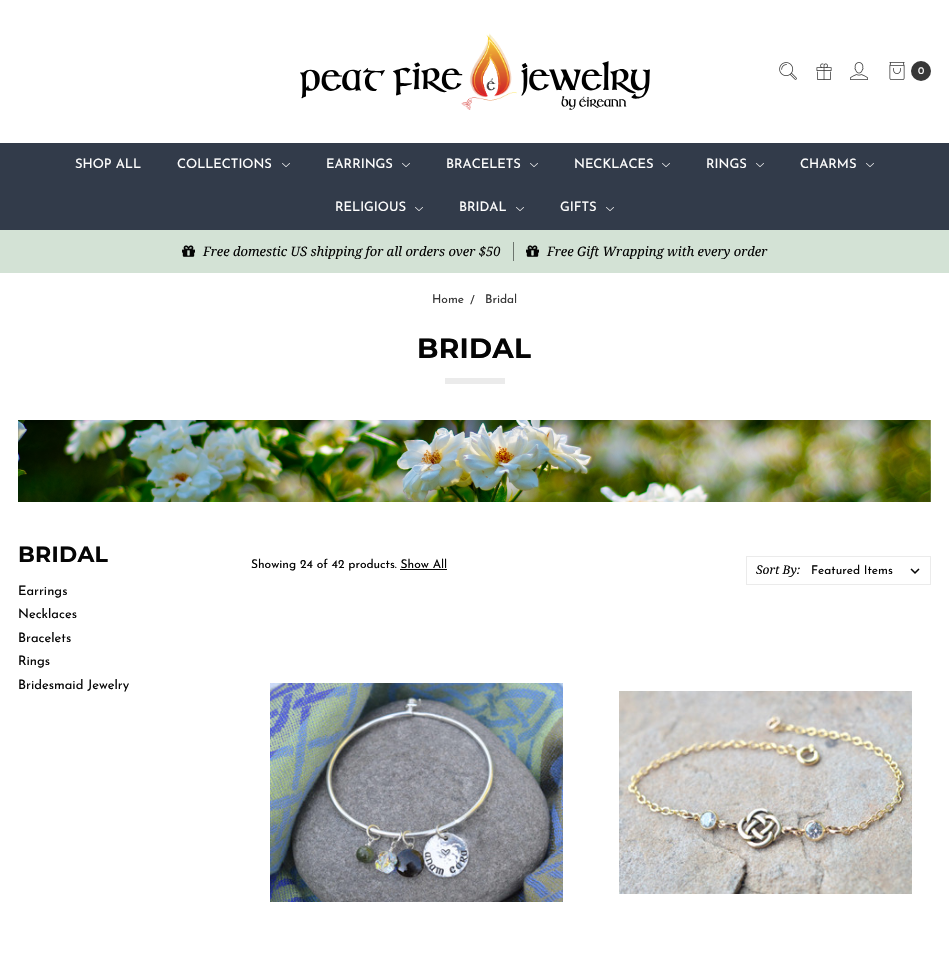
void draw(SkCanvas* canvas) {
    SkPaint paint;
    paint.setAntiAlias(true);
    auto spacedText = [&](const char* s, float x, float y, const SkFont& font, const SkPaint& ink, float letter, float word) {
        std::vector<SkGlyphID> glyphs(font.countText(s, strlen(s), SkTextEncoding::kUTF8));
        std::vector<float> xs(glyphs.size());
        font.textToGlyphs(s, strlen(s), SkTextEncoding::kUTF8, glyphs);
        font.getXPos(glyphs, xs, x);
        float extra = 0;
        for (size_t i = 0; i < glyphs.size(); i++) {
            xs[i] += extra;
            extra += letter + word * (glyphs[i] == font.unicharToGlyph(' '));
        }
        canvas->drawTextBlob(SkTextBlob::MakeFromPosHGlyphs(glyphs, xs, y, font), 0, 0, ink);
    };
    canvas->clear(0xFFFFFFFF);
    canvas->drawImageRect(SkImages::DeferredFromEncodedData(SkData::MakeFromFileName("img1.png")), SkRect::MakeXYWH(300, 33, 350, 77), SkSamplingOptions());
    canvas->drawImageRect(SkImages::DeferredFromEncodedData(SkData::MakeFromFileName("img2.png")), SkRect::MakeXYWH(779, 62, 18, 18), SkSamplingOptions());
    canvas->drawImageRect(SkImages::DeferredFromEncodedData(SkData::MakeFromFileName("img3.png")), SkRect::MakeXYWH(816, 63, 16, 17), SkSamplingOptions());
    canvas->drawImageRect(SkImages::DeferredFromEncodedData(SkData::MakeFromFileName("img4.png")), SkRect::MakeXYWH(850, 62, 18, 18), SkSamplingOptions());
    canvas->drawImageRect(SkImages::DeferredFromEncodedData(SkData::MakeFromFileName("img5.png")), SkRect::MakeXYWH(889, 62, 16, 18), SkSamplingOptions());
    paint.setColor(0xFF373737);
    canvas->drawCircle(921, 71, 10, paint);
    SkFont font1(fontMgr->matchFamilyStyle("Josefin Sans", SkFontStyle(100, SkFontStyle::kNormal_Width, SkFontStyle::kUpright_Slant)), 10);
    font1.setSubpixel(true);
    paint.setColor(0xFFFFFFFF);
    canvas->drawString("0", 918, 74, font1, paint);
    paint.setColor(0xFF323B4A);
    canvas->drawRect(SkRect::MakeXYWH(0, 143, 949, 87), paint);
    SkFont font2(fontMgr->matchFamilyStyle("Josefin Sans", SkFontStyle(100, SkFontStyle::kNormal_Width, SkFontStyle::kUpright_Slant)), 13);
    font2.setSubpixel(true);
    paint.setColor(0xFFFFFFFF);
    canvas->drawString("SHOP ALL", 75, 168, font2, paint);
    canvas->drawString("COLLECTIONS", 177, 168, font2, paint);
    canvas->drawImageRect(SkImages::DeferredFromEncodedData(SkData::MakeFromFileName("img6.png")), SkRect::MakeXYWH(282, 163, 8, 4), SkSamplingOptions());
    canvas->drawString("EARRINGS", 326, 168, font2, paint);
    canvas->drawImageRect(SkImages::DeferredFromEncodedData(SkData::MakeFromFileName("img6.png")), SkRect::MakeXYWH(402, 163, 8, 4), SkSamplingOptions());
    canvas->drawString("BRACELETS", 446, 168, font2, paint);
    canvas->drawImageRect(SkImages::DeferredFromEncodedData(SkData::MakeFromFileName("img6.png")), SkRect::MakeXYWH(530, 163, 8, 4), SkSamplingOptions());
    canvas->drawString("NECKLACES", 574, 168, font2, paint);
    canvas->drawImageRect(SkImages::DeferredFromEncodedData(SkData::MakeFromFileName("img6.png")), SkRect::MakeXYWH(662, 163, 8, 4), SkSamplingOptions());
    canvas->drawString("RINGS", 706, 168, font2, paint);
    canvas->drawImageRect(SkImages::DeferredFromEncodedData(SkData::MakeFromFileName("img6.png")), SkRect::MakeXYWH(756, 163, 8, 4), SkSamplingOptions());
    canvas->drawString("CHARMS", 800, 168, font2, paint);
    canvas->drawImageRect(SkImages::DeferredFromEncodedData(SkData::MakeFromFileName("img6.png")), SkRect::MakeXYWH(866, 163, 8, 4), SkSamplingOptions());
    canvas->drawString("RELIGIOUS", 335, 211, font2, paint);
    canvas->drawImageRect(SkImages::DeferredFromEncodedData(SkData::MakeFromFileName("img6.png")), SkRect::MakeXYWH(415, 207, 8, 4), SkSamplingOptions());
    canvas->drawString("BRIDAL", 459, 211, font2, paint);
    canvas->drawImageRect(SkImages::DeferredFromEncodedData(SkData::MakeFromFileName("img6.png")), SkRect::MakeXYWH(516, 207, 8, 4), SkSamplingOptions());
    canvas->drawString("GIFTS", 560, 211, font2, paint);
    canvas->drawImageRect(SkImages::DeferredFromEncodedData(SkData::MakeFromFileName("img6.png")), SkRect::MakeXYWH(606, 207, 8, 4), SkSamplingOptions());
    paint.setColor(0xFFD3E2D5);
    canvas->drawRect(SkRect::MakeXYWH(0, 230, 949, 43), paint);
    canvas->drawImageRect(SkImages::DeferredFromEncodedData(SkData::MakeFromFileName("img7.png")), SkRect::MakeXYWH(182, 245, 13, 12), SkSamplingOptions());
    SkFont font3(fontMgr->matchFamilyStyle("Noto Serif", SkFontStyle::Italic()), 13);
    font3.setSubpixel(true);
    paint.setColor(0xFF050505);
    canvas->drawString("Free domestic US shipping for all orders over $50", 203, 256, font3, paint);
    paint.setColor(0xFF6C746D);
    canvas->drawRect(SkRect::MakeXYWH(513, 242, 1, 19), paint);
    canvas->drawImageRect(SkImages::DeferredFromEncodedData(SkData::MakeFromFileName("img7.png")), SkRect::MakeXYWH(526, 245, 13, 12), SkSamplingOptions());
    paint.setColor(0xFF050505);
    canvas->drawString("Free Gift Wrapping with every order", 547, 256, font3, paint);
    SkFont font4(fontMgr->matchFamilyStyle("Josefin Sans", SkFontStyle(100, SkFontStyle::kNormal_Width, SkFontStyle::kUpright_Slant)), 12);
    font4.setSubpixel(true);
    paint.setColor(0xFF373737);
    canvas->drawString("Home", 432, 303, font4, paint);
    canvas->drawString("/", 470, 304, font4, paint);
    canvas->drawString("Bridal", 485, 303, font4, paint);
    SkFont font5(fontMgr->matchFamilyStyle("Montserrat", SkFontStyle::Bold()), 28);
    font5.setSubpixel(true);
    paint.setColor(0xFF050505);
    spacedText("BRIDAL", 417, 358, font5, paint, 0.25f, 0);
    paint.setColor(0xFFEBEBEB);
    canvas->drawRect(SkRect::MakeXYWH(445, 378, 60, 6), paint);
    canvas->drawImageRect(SkImages::DeferredFromEncodedData(SkData::MakeFromFileName("img8.png")), SkRect::MakeXYWH(18, 420, 913, 82), SkSamplingOptions());
    SkFont font6(fontMgr->matchFamilyStyle("Montserrat", SkFontStyle::Bold()), 22);
    font6.setSubpixel(true);
    paint.setColor(0xFF050505);
    spacedText("BRIDAL", 18, 562, font6, paint, 0.25f, 0);
    canvas->drawString("Earrings", 18, 595, font2, paint);
    canvas->drawString("Necklaces", 18, 618, font2, paint);
    canvas->drawString("Bracelets", 18, 642, font2, paint);
    canvas->drawString("Rings", 18, 665, font2, paint);
    canvas->drawString("Bridesmaid Jewelry", 18, 689, font2, paint);
    canvas->drawString("Showing 24 of 42 products. Show All", 251, 568, font4, paint);
    canvas->drawRect(SkRect::MakeXYWH(400, 569, 47, 1), paint);
    paint.setStyle(SkPaint::kStroke_Style);
    paint.setStrokeWidth(1);
    paint.setColor(0xFFEBEBEB);
    canvas->drawRect(SkRect::MakeXYWH(746.5f, 556.5f, 184, 28), paint);
    SkFont font7(fontMgr->matchFamilyStyle("Noto Serif", SkFontStyle::Italic()), 12);
    font7.setSubpixel(true);
    paint.setStyle(SkPaint::kFill_Style);
    paint.setColor(0xFF050505);
    canvas->drawString("Sort By:", 756, 574, font7, paint);
    canvas->drawImageRect(SkImages::DeferredFromEncodedData(SkData::MakeFromFileName("img9.png")), SkRect::MakeXYWH(910, 568, 10, 6), SkSamplingOptions());
    canvas->drawString("Featured Items", 811, 574, font4, paint);
    canvas->drawImageRect(SkImages::DeferredFromEncodedData(SkData::MakeFromFileName("img10.png")), SkRect::MakeXYWH(270, 683, 293, 219), SkSamplingOptions());
    canvas->drawImageRect(SkImages::DeferredFromEncodedData(SkData::MakeFromFileName("img11.png")), SkRect::MakeXYWH(619, 691, 293, 203), SkSamplingOptions());
}
